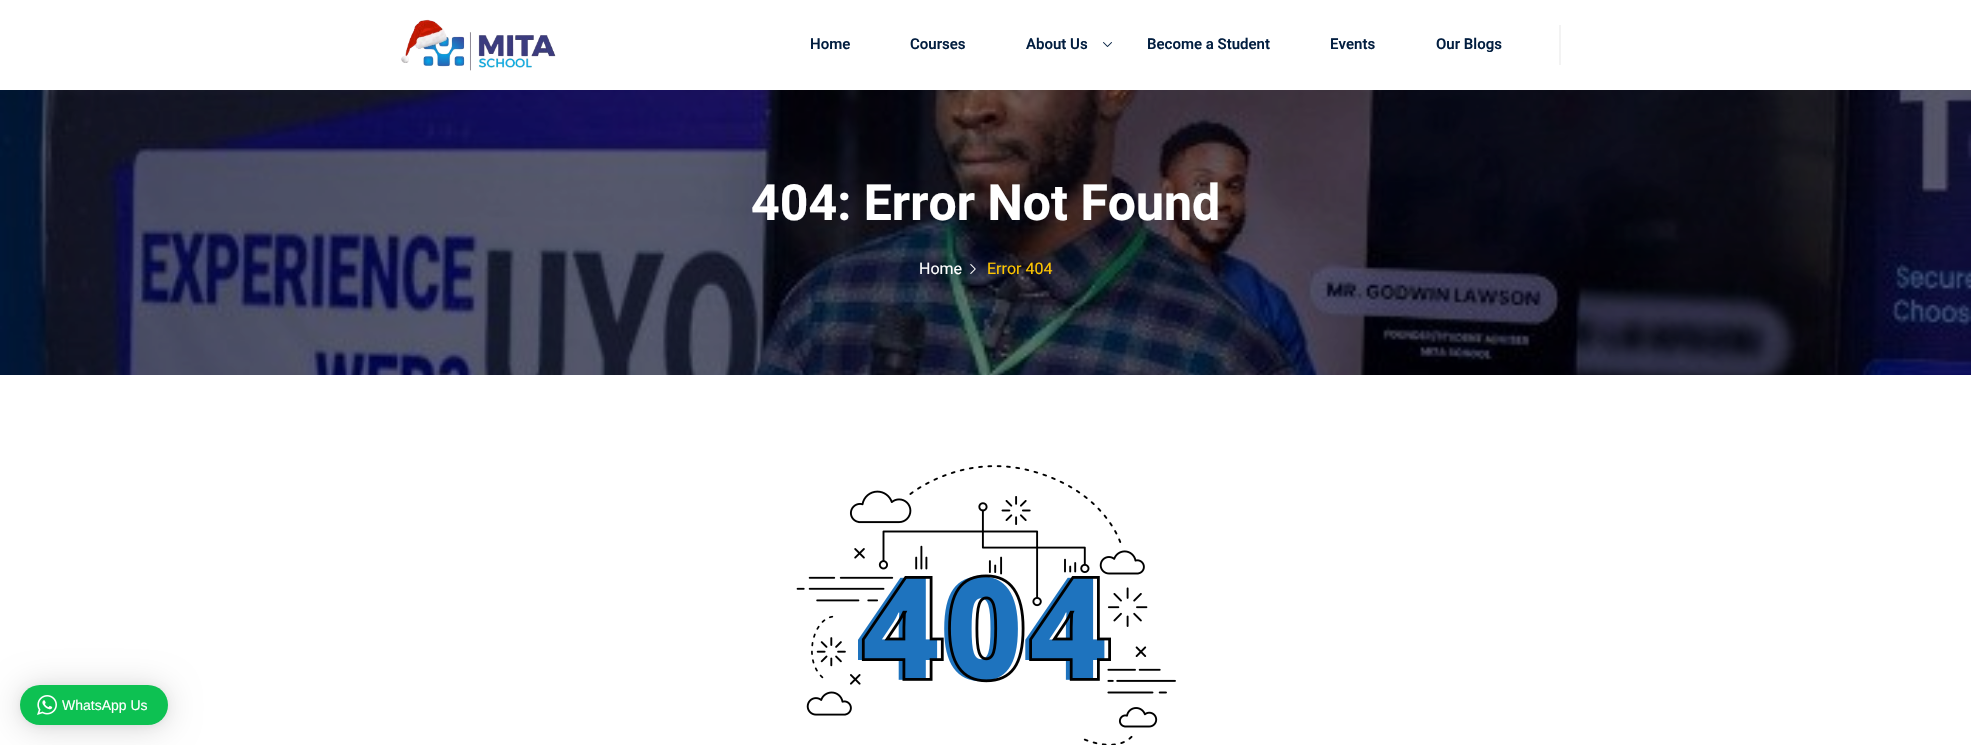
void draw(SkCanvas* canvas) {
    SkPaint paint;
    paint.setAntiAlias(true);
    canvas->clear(0xFFFFFFFF);
    canvas->drawImageRect(SkImages::DeferredFromEncodedData(SkData::MakeFromFileName("img1.png")), SkRect::MakeXYWH(401, 19, 155, 52), SkSamplingOptions());
    SkFont font1(fontMgr->matchFamilyStyle("Heebo", SkFontStyle(600, SkFontStyle::kNormal_Width, SkFontStyle::kUpright_Slant)), 15);
    font1.setSubpixel(true);
    paint.setColor(0xFF021E40);
    canvas->drawString("Home", 810, 49, font1, paint);
    canvas->drawString("Courses", 910, 49, font1, paint);
    canvas->drawString("About Us", 1026, 49, font1, paint);
    canvas->drawImageRect(SkImages::DeferredFromEncodedData(SkData::MakeFromFileName("img2.png")), SkRect::MakeXYWH(1103, 42, 9, 5), SkSamplingOptions());
    canvas->drawString("Become a Student", 1147, 49, font1, paint);
    canvas->drawString("Events", 1330, 49, font1, paint);
    canvas->drawString("Our Blogs", 1436, 49, font1, paint);
    paint.setColor(0xFFF3F3F3);
    canvas->drawRect(SkRect::MakeXYWH(1559, 25, 2, 40), paint);
    canvas->drawImageRect(SkImages::DeferredFromEncodedData(SkData::MakeFromFileName("img3.png")), SkRect::MakeXYWH(0, 90, 1971, 285), SkSamplingOptions());
    SkFont font2(fontMgr->matchFamilyStyle("Heebo", SkFontStyle::Bold()), 50);
    font2.setSubpixel(true);
    paint.setColor(0xFFFFFFFF);
    canvas->drawString("404: Error Not Found", 751, 220, font2, paint);
    SkFont font3(fontMgr->matchFamilyStyle("Heebo", SkFontStyle::Normal()), 16);
    font3.setSubpixel(true);
    canvas->drawString("Home", 919, 274, font3, paint);
    canvas->drawImageRect(SkImages::DeferredFromEncodedData(SkData::MakeFromFileName("img4.png")), SkRect::MakeXYWH(970, 264, 6, 10), SkSamplingOptions());
    paint.setColor(0xFFFFC600);
    canvas->drawString("Error 404", 987, 274, font3, paint);
    canvas->drawImageRect(SkImages::DeferredFromEncodedData(SkData::MakeFromFileName("img5.png")), SkRect::MakeXYWH(796, 465, 380, 280), SkSamplingOptions());
    paint.setColor(0x29000000);
    paint.setMaskFilter(SkMaskFilter::MakeBlur(kNormal_SkBlurStyle, 16));
    canvas->drawRoundRect(SkRect::MakeXYWH(20, 687, 148, 40), 20, 20, paint);
    paint.setMaskFilter(nullptr);
    paint.setColor(0x0F000000);
    paint.setMaskFilter(SkMaskFilter::MakeBlur(kNormal_SkBlurStyle, 3));
    canvas->drawRoundRect(SkRect::MakeXYWH(20, 686, 148, 40), 20, 20, paint);
    paint.setMaskFilter(nullptr);
    paint.setColor(0xFF0DC152);
    canvas->drawRoundRect(SkRect::MakeXYWH(20, 685, 148, 40), 20, 20, paint);
    canvas->drawImageRect(SkImages::DeferredFromEncodedData(SkData::MakeFromFileName("img6.png")), SkRect::MakeXYWH(37, 695, 20, 20), SkSamplingOptions());
    SkFont font4(fontMgr->matchFamilyStyle("Liberation Sans", SkFontStyle::Normal()), 14);
    font4.setSubpixel(true);
    paint.setColor(0xFFFFFFFF);
    canvas->drawString("WhatsApp Us", 62, 710, font4, paint);
}
